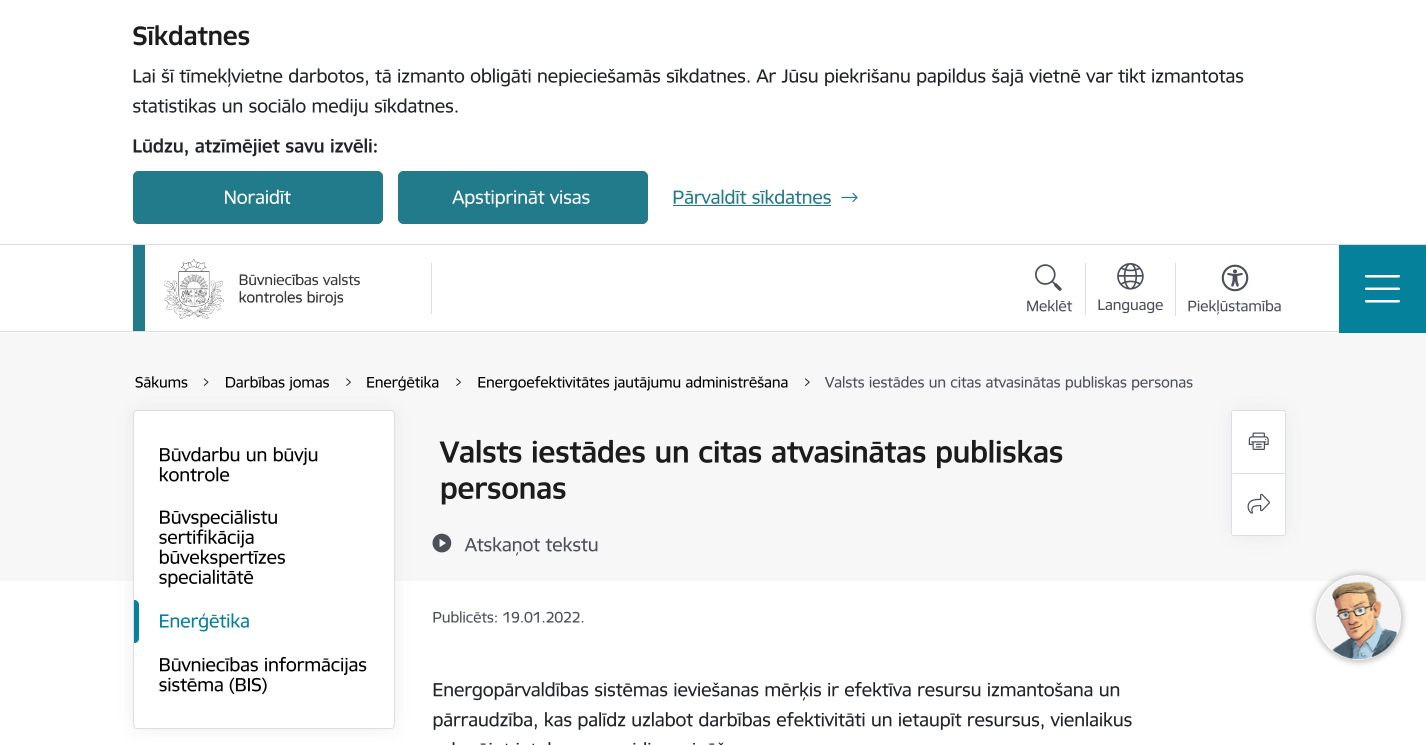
void draw(SkCanvas* canvas) {
    SkPaint paint;
    paint.setAntiAlias(true);
    canvas->clear(0xFFFFFFFF);
    paint.setColor(0xFFDBDEE4);
    canvas->drawRect(SkRect::MakeXYWH(0, 244, 1426, 1), paint);
    canvas->drawImageRect(SkImages::DeferredFromEncodedData(SkData::MakeFromFileName("img1.png")), SkRect::MakeXYWH(133, 25, 117, 21), SkSamplingOptions());
    canvas->drawImageRect(SkImages::DeferredFromEncodedData(SkData::MakeFromFileName("img2.png")), SkRect::MakeXYWH(133, 68, 1111, 19), SkSamplingOptions());
    canvas->drawImageRect(SkImages::DeferredFromEncodedData(SkData::MakeFromFileName("img3.png")), SkRect::MakeXYWH(133, 98, 325, 19), SkSamplingOptions());
    canvas->drawImageRect(SkImages::DeferredFromEncodedData(SkData::MakeFromFileName("img4.png")), SkRect::MakeXYWH(133, 138, 244, 19), SkSamplingOptions());
    paint.setColor(0xFF227B8B);
    canvas->drawRoundRect(SkRect::MakeXYWH(133.5f, 171.5f, 249, 52), 4.5f, 4.5f, paint);
    paint.setStyle(SkPaint::kStroke_Style);
    paint.setStrokeWidth(1);
    canvas->drawRoundRect(SkRect::MakeXYWH(133.5f, 171.5f, 249, 52), 4.5f, 4.5f, paint);
    canvas->drawImageRect(SkImages::DeferredFromEncodedData(SkData::MakeFromFileName("img5.png")), SkRect::MakeXYWH(225, 189, 66, 15), SkSamplingOptions());
    paint.setStyle(SkPaint::kFill_Style);
    canvas->drawRoundRect(SkRect::MakeXYWH(398.5f, 171.5f, 249, 52), 4.5f, 4.5f, paint);
    paint.setStyle(SkPaint::kStroke_Style);
    canvas->drawRoundRect(SkRect::MakeXYWH(398.5f, 171.5f, 249, 52), 4.5f, 4.5f, paint);
    canvas->drawImageRect(SkImages::DeferredFromEncodedData(SkData::MakeFromFileName("img6.png")), SkRect::MakeXYWH(452, 190, 138, 18), SkSamplingOptions());
    canvas->drawImageRect(SkImages::DeferredFromEncodedData(SkData::MakeFromFileName("img7.png")), SkRect::MakeXYWH(673, 189, 158, 15), SkSamplingOptions());
    canvas->drawImageRect(SkImages::DeferredFromEncodedData(SkData::MakeFromFileName("img8.png")), SkRect::MakeXYWH(841, 192, 17, 11), SkSamplingOptions());
    paint.setStyle(SkPaint::kFill_Style);
    canvas->drawRect(SkRect::MakeXYWH(673, 205, 158, 1), paint);
    paint.setColor(0xFFDBDEE4);
    canvas->drawRect(SkRect::MakeXYWH(0, 331, 1339, 1), paint);
    paint.setColor(0xFFFFFFFF);
    canvas->drawRect(SkRect::MakeXYWH(114, 331, 1200, 1), paint);
    paint.setColor(0xFFDBDEE4);
    canvas->drawRect(SkRect::MakeXYWH(114, 331, 1200, 1), paint);
    paint.setColor(0xFF227B8B);
    canvas->drawRect(SkRect::MakeXYWH(133, 245, 12, 86), paint);
    canvas->drawImageRect(SkImages::DeferredFromEncodedData(SkData::MakeFromFileName("img9.png")), SkRect::MakeXYWH(164, 258, 196, 61), SkSamplingOptions());
    paint.setColor(0xFFDBDEE4);
    canvas->drawRect(SkRect::MakeXYWH(431, 263, 1, 51), paint);
    canvas->drawImageRect(SkImages::DeferredFromEncodedData(SkData::MakeFromFileName("img10.png")), SkRect::MakeXYWH(1035, 264, 27, 27), SkSamplingOptions());
    canvas->drawImageRect(SkImages::DeferredFromEncodedData(SkData::MakeFromFileName("img11.png")), SkRect::MakeXYWH(1027, 300, 46, 12), SkSamplingOptions());
    canvas->drawRect(SkRect::MakeXYWH(1085, 263, 1, 52), paint);
    canvas->drawImageRect(SkImages::DeferredFromEncodedData(SkData::MakeFromFileName("img12.png")), SkRect::MakeXYWH(1117, 263, 27, 27), SkSamplingOptions());
    canvas->drawImageRect(SkImages::DeferredFromEncodedData(SkData::MakeFromFileName("img13.png")), SkRect::MakeXYWH(1098, 299, 65, 15), SkSamplingOptions());
    canvas->drawRect(SkRect::MakeXYWH(1175, 263, 1, 53), paint);
    canvas->drawImageRect(SkImages::DeferredFromEncodedData(SkData::MakeFromFileName("img14.png")), SkRect::MakeXYWH(1221, 264, 28, 28), SkSamplingOptions());
    canvas->drawImageRect(SkImages::DeferredFromEncodedData(SkData::MakeFromFileName("img15.png")), SkRect::MakeXYWH(1188, 300, 93, 15), SkSamplingOptions());
    paint.setColor(0xFF05819C);
    canvas->drawRect(SkRect::MakeXYWH(1339, 245, 87, 88), paint);
    canvas->drawImageRect(SkImages::DeferredFromEncodedData(SkData::MakeFromFileName("img16.png")), SkRect::MakeXYWH(1365, 275, 35, 28), SkSamplingOptions());
    paint.setColor(0xFFF7F7F7);
    canvas->drawRect(SkRect::MakeXYWH(0, 333, 1426, 248), paint);
    canvas->drawImageRect(SkImages::DeferredFromEncodedData(SkData::MakeFromFileName("img17.png")), SkRect::MakeXYWH(135, 376, 53, 12), SkSamplingOptions());
    canvas->drawImageRect(SkImages::DeferredFromEncodedData(SkData::MakeFromFileName("img18.png")), SkRect::MakeXYWH(203, 378, 6, 8), SkSamplingOptions());
    canvas->drawImageRect(SkImages::DeferredFromEncodedData(SkData::MakeFromFileName("img19.png")), SkRect::MakeXYWH(226, 376, 103, 15), SkSamplingOptions());
    canvas->drawImageRect(SkImages::DeferredFromEncodedData(SkData::MakeFromFileName("img20.png")), SkRect::MakeXYWH(346, 378, 5, 8), SkSamplingOptions());
    canvas->drawImageRect(SkImages::DeferredFromEncodedData(SkData::MakeFromFileName("img21.png")), SkRect::MakeXYWH(367, 376, 72, 15), SkSamplingOptions());
    canvas->drawImageRect(SkImages::DeferredFromEncodedData(SkData::MakeFromFileName("img20.png")), SkRect::MakeXYWH(456, 378, 5, 8), SkSamplingOptions());
    canvas->drawImageRect(SkImages::DeferredFromEncodedData(SkData::MakeFromFileName("img22.png")), SkRect::MakeXYWH(478, 376, 310, 15), SkSamplingOptions());
    canvas->drawImageRect(SkImages::DeferredFromEncodedData(SkData::MakeFromFileName("img23.png")), SkRect::MakeXYWH(805, 378, 5, 8), SkSamplingOptions());
    canvas->drawImageRect(SkImages::DeferredFromEncodedData(SkData::MakeFromFileName("img24.png")), SkRect::MakeXYWH(824, 376, 369, 15), SkSamplingOptions());
    canvas->drawImageRect(SkImages::DeferredFromEncodedData(SkData::MakeFromFileName("img25.png")), SkRect::MakeXYWH(439, 439, 624, 30), SkSamplingOptions());
    canvas->drawImageRect(SkImages::DeferredFromEncodedData(SkData::MakeFromFileName("img26.png")), SkRect::MakeXYWH(441, 482, 125, 23), SkSamplingOptions());
    canvas->drawImageRect(SkImages::DeferredFromEncodedData(SkData::MakeFromFileName("img27.png")), SkRect::MakeXYWH(432, 533, 20, 20), SkSamplingOptions());
    canvas->drawImageRect(SkImages::DeferredFromEncodedData(SkData::MakeFromFileName("img28.png")), SkRect::MakeXYWH(464, 537, 134, 19), SkSamplingOptions());
    paint.setColor(0x80D8DADD);
    paint.setMaskFilter(SkMaskFilter::MakeBlur(kNormal_SkBlurStyle, 9.5f));
    canvas->drawRoundRect(SkRect::MakeXYWH(133, 410, 262, 319), 4, 4, paint);
    paint.setMaskFilter(nullptr);
    paint.setColor(0xFFFFFFFF);
    canvas->drawRoundRect(SkRect::MakeXYWH(133.5f, 410.5f, 261, 318), 3.5f, 3.5f, paint);
    paint.setStyle(SkPaint::kStroke_Style);
    paint.setColor(0xFFDBDEE4);
    canvas->drawRoundRect(SkRect::MakeXYWH(133.5f, 410.5f, 261, 318), 3.5f, 3.5f, paint);
    canvas->drawImageRect(SkImages::DeferredFromEncodedData(SkData::MakeFromFileName("img29.png")), SkRect::MakeXYWH(160, 447, 158, 18), SkSamplingOptions());
    canvas->drawImageRect(SkImages::DeferredFromEncodedData(SkData::MakeFromFileName("img30.png")), SkRect::MakeXYWH(159, 467, 71, 15), SkSamplingOptions());
    canvas->drawImageRect(SkImages::DeferredFromEncodedData(SkData::MakeFromFileName("img31.png")), SkRect::MakeXYWH(160, 509, 117, 19), SkSamplingOptions());
    canvas->drawImageRect(SkImages::DeferredFromEncodedData(SkData::MakeFromFileName("img32.png")), SkRect::MakeXYWH(159, 529, 95, 19), SkSamplingOptions());
    canvas->drawImageRect(SkImages::DeferredFromEncodedData(SkData::MakeFromFileName("img33.png")), SkRect::MakeXYWH(159, 549, 126, 19), SkSamplingOptions());
    canvas->drawImageRect(SkImages::DeferredFromEncodedData(SkData::MakeFromFileName("img34.png")), SkRect::MakeXYWH(159, 569, 95, 19), SkSamplingOptions());
    paint.setStyle(SkPaint::kFill_Style);
    paint.setColor(0xFF05819C);
    canvas->drawPath(SkPathBuilder().moveTo(134, 600).cubicTo(137, 600, 139, 602, 139, 605).lineTo(139, 638).cubicTo(139, 641, 137, 643, 134, 643).close().detach(), paint);
    canvas->drawImageRect(SkImages::DeferredFromEncodedData(SkData::MakeFromFileName("img35.png")), SkRect::MakeXYWH(160, 613, 89, 19), SkSamplingOptions());
    canvas->drawImageRect(SkImages::DeferredFromEncodedData(SkData::MakeFromFileName("img36.png")), SkRect::MakeXYWH(160, 656, 207, 19), SkSamplingOptions());
    canvas->drawImageRect(SkImages::DeferredFromEncodedData(SkData::MakeFromFileName("img37.png")), SkRect::MakeXYWH(159, 677, 108, 18), SkSamplingOptions());
    paint.setColor(0x80D8DADD);
    paint.setMaskFilter(SkMaskFilter::MakeBlur(kNormal_SkBlurStyle, 9.5f));
    canvas->drawRoundRect(SkRect::MakeXYWH(1231, 410, 55, 126), 2.5f, 2.5f, paint);
    paint.setMaskFilter(nullptr);
    paint.setColor(0xFFFFFFFF);
    canvas->drawRoundRect(SkRect::MakeXYWH(1231.5f, 410.5f, 54, 125), 2, 2, paint);
    paint.setStyle(SkPaint::kStroke_Style);
    paint.setColor(0xFFDBDEE4);
    canvas->drawRoundRect(SkRect::MakeXYWH(1231.5f, 410.5f, 54, 125), 2, 2, paint);
    paint.setStyle(SkPaint::kFill_Style);
    canvas->drawRect(SkRect::MakeXYWH(1233, 473, 52, 1), paint);
    canvas->drawImageRect(SkImages::DeferredFromEncodedData(SkData::MakeFromFileName("img38.png")), SkRect::MakeXYWH(1248, 432, 21, 18), SkSamplingOptions());
    canvas->drawImageRect(SkImages::DeferredFromEncodedData(SkData::MakeFromFileName("img39.png")), SkRect::MakeXYWH(1247, 493, 23, 21), SkSamplingOptions());
    canvas->drawImageRect(SkImages::DeferredFromEncodedData(SkData::MakeFromFileName("img40.png")), SkRect::MakeXYWH(433, 611, 151, 12), SkSamplingOptions());
    canvas->drawImageRect(SkImages::DeferredFromEncodedData(SkData::MakeFromFileName("img41.png")), SkRect::MakeXYWH(433, 681, 687, 20), SkSamplingOptions());
    canvas->drawImageRect(SkImages::DeferredFromEncodedData(SkData::MakeFromFileName("img42.png")), SkRect::MakeXYWH(433, 711, 699, 19), SkSamplingOptions());
    canvas->drawImageRect(SkImages::DeferredFromEncodedData(SkData::MakeFromFileName("img43.png")), SkRect::MakeXYWH(452, 742, 272, 3), SkSamplingOptions());
    paint.setColor(0x33000000);
    paint.setMaskFilter(SkMaskFilter::MakeBlur(kNormal_SkBlurStyle, 2.5f));
    canvas->drawRoundRect(SkRect::MakeXYWH(1314, 573, 90, 90), 45, 45, paint);
    paint.setMaskFilter(nullptr);
    paint.setColor(0xFFFFFFFF);
    canvas->drawCircle(1358.5f, 617.5f, 42.5f, paint);
    canvas->drawImageRect(SkImages::DeferredFromEncodedData(SkData::MakeFromFileName("img44.png")), SkRect::MakeXYWH(1317, 576, 84, 84), SkSamplingOptions());
}
